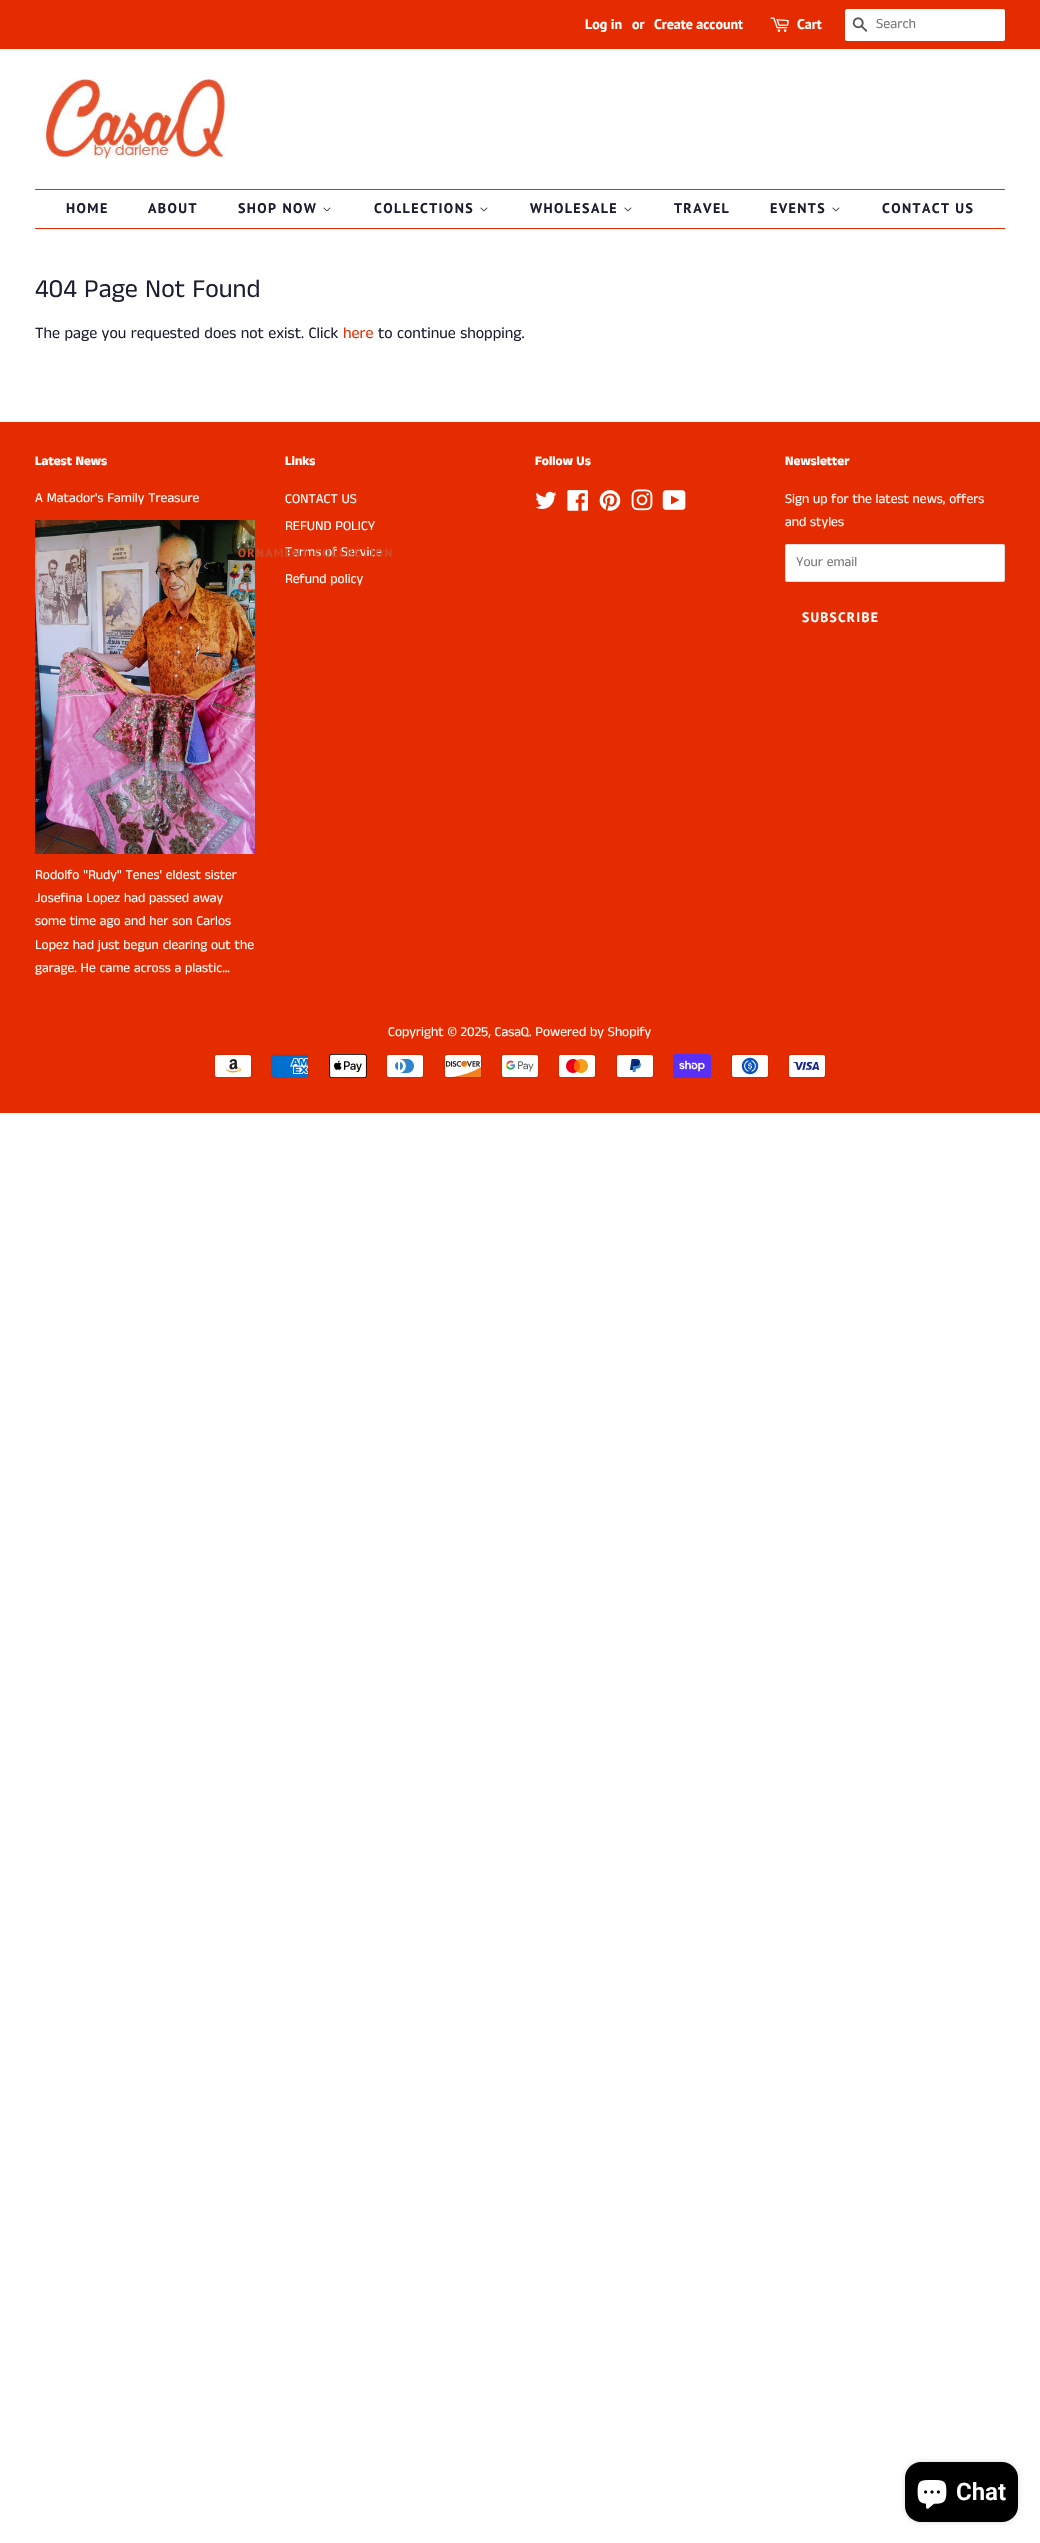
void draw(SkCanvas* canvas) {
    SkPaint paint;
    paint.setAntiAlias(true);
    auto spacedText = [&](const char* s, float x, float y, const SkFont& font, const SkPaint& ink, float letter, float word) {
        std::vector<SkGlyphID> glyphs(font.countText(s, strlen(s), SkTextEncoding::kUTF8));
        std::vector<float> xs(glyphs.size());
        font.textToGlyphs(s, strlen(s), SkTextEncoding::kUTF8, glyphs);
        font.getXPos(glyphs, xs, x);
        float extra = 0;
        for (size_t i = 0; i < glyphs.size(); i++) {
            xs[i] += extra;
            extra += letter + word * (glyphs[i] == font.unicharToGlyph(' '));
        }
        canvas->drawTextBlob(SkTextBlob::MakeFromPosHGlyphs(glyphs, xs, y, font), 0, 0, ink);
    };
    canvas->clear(0xFFFFFFFF);
    paint.setColor(0xFFE42C00);
    canvas->drawRect(SkRect::MakeXYWH(0, 0, 1040, 49), paint);
    SkFont font1(fontMgr->matchFamilyStyle("PT Sans", SkFontStyle::Bold()), 14);
    font1.setSubpixel(true);
    paint.setColor(0xFFFFFFFF);
    canvas->drawString("Log in", 585, 29, font1, paint);
    canvas->drawString("or", 632, 29, font1, paint);
    canvas->drawString("Create account", 654, 29, font1, paint);
    canvas->drawImageRect(SkImages::DeferredFromEncodedData(SkData::MakeFromFileName("img1.png")), SkRect::MakeXYWH(770, 17, 19, 15), SkSamplingOptions());
    canvas->drawString("Cart", 797, 29, font1, paint);
    canvas->drawRoundRect(SkRect::MakeXYWH(845, 9, 160, 32), 2, 2, paint);
    canvas->drawImageRect(SkImages::DeferredFromEncodedData(SkData::MakeFromFileName("img2.png")), SkRect::MakeXYWH(852, 17, 16, 15), SkSamplingOptions());
    SkFont font2(fontMgr->matchFamilyStyle("Anek Tamil", SkFontStyle::Normal()), 14);
    font2.setSubpixel(true);
    paint.setColor(0xFF757575);
    canvas->drawString("Search", 876, 28, font2, paint);
    canvas->drawImageRect(SkImages::DeferredFromEncodedData(SkData::MakeFromFileName("img3.png")), SkRect::MakeXYWH(41, 79, 186, 80), SkSamplingOptions());
    paint.setColor(0xFFE42C00);
    canvas->drawRect(SkRect::MakeXYWH(35, 189, 970, 1), paint);
    canvas->drawRect(SkRect::MakeXYWH(35, 228, 970, 1), paint);
    paint.setColor(0xFF1B1E2F);
    spacedText("HOME", 66, 213, font1, paint, 1.4f, 0);
    spacedText("ABOUT", 148, 213, font1, paint, 1.4f, 0);
    spacedText("SHOP NOW", 238, 213, font1, paint, 1.4f, 0);
    canvas->drawImageRect(SkImages::DeferredFromEncodedData(SkData::MakeFromFileName("img4.png")), SkRect::MakeXYWH(323, 207, 8, 5), SkSamplingOptions());
    paint.setColor(0xFFE42C00);
    canvas->drawRect(SkRect::MakeXYWH(0, 422, 1040, 691), paint);
    canvas->drawImageRect(SkImages::DeferredFromEncodedData(SkData::MakeFromFileName("img5.png")), SkRect::MakeXYWH(35, 520, 220, 334), SkSamplingOptions());
    SkFont font3(fontMgr->matchFamilyStyle("Anek Tamil", SkFontStyle::Normal()), 13.6f);
    font3.setSubpixel(true);
    paint.setColor(0xFFFFFFFF);
    canvas->drawString("Terms of Service", 285, 556, font3, paint);
    SkFont font4(fontMgr->matchFamilyStyle("PT Sans", SkFontStyle::Bold()), 11.9f);
    font4.setSubpixel(true);
    paint.setColor(0xFFCF4B29);
    spacedText("ORNAMENT COLLECTION", 238, 557, font4, paint, 1.4f, 0);
    paint.setColor(0xFFD94321);
    spacedText("CL", 238, 591, font4, paint, 1.4f, 0);
    paint.setColor(0xFF1B1E2F);
    spacedText("COLLECTIONS", 374, 213, font1, paint, 1.4f, 0);
    canvas->drawImageRect(SkImages::DeferredFromEncodedData(SkData::MakeFromFileName("img4.png")), SkRect::MakeXYWH(480, 207, 8, 5), SkSamplingOptions());
    spacedText("WHOLESALE", 530, 213, font1, paint, 1.4f, 0);
    canvas->drawImageRect(SkImages::DeferredFromEncodedData(SkData::MakeFromFileName("img4.png")), SkRect::MakeXYWH(624, 207, 8, 5), SkSamplingOptions());
    spacedText("TRAVEL", 674, 213, font1, paint, 1.4f, 0);
    spacedText("EVENTS", 770, 213, font1, paint, 1.4f, 0);
    canvas->drawImageRect(SkImages::DeferredFromEncodedData(SkData::MakeFromFileName("img4.png")), SkRect::MakeXYWH(832, 207, 8, 5), SkSamplingOptions());
    spacedText("CONTACT US", 882, 213, font1, paint, 1.4f, 0);
    SkFont font5(fontMgr->matchFamilyStyle("Anek Tamil", SkFontStyle::Normal()), 26);
    font5.setSubpixel(true);
    canvas->drawString("404 Page Not Found", 35, 297, font5, paint);
    SkFont font6(fontMgr->matchFamilyStyle("Anek Tamil", SkFontStyle::Normal()), 16);
    font6.setSubpixel(true);
    canvas->drawString("The page you requested does not exist. Click", 35, 338, font6, paint);
    paint.setColor(0xFFE42C00);
    canvas->drawString("here", 343, 338, font6, paint);
    paint.setColor(0xFF1B1E2F);
    canvas->drawString("to continue shopping.", 378, 338, font6, paint);
    SkFont font7(fontMgr->matchFamilyStyle("Anek Tamil", SkFontStyle::Bold()), 13);
    font7.setSubpixel(true);
    paint.setColor(0xFFFFFFFF);
    canvas->drawString("Latest News", 35, 465, font7, paint);
    canvas->drawString("A Matador's Family Treasure", 35, 502, font3, paint);
    canvas->drawString("Rodolfo \"Rudy\" Tenes' eldest sister", 35, 879, font3, paint);
    canvas->drawString("Josefina Lopez had passed away", 35, 902, font3, paint);
    canvas->drawString("some time ago and her son Carlos", 35, 925, font3, paint);
    canvas->drawString("Lopez had just begun clearing out the", 35, 949, font3, paint);
    canvas->drawString("garage. He came across a plastic...", 35, 972, font3, paint);
    canvas->drawString("Links", 285, 465, font7, paint);
    canvas->drawString("CONTACT US", 285, 503, font3, paint);
    canvas->drawString("REFUND POLICY", 285, 530, font3, paint);
    canvas->drawString("Refund policy", 285, 583, font3, paint);
    canvas->drawString("Follow Us", 535, 465, font7, paint);
    canvas->drawImageRect(SkImages::DeferredFromEncodedData(SkData::MakeFromFileName("img6.png")), SkRect::MakeXYWH(535, 491, 22, 18), SkSamplingOptions());
    canvas->drawImageRect(SkImages::DeferredFromEncodedData(SkData::MakeFromFileName("img7.png")), SkRect::MakeXYWH(567, 490, 21, 21), SkSamplingOptions());
    canvas->drawImageRect(SkImages::DeferredFromEncodedData(SkData::MakeFromFileName("img8.png")), SkRect::MakeXYWH(599, 490, 22, 21), SkSamplingOptions());
    canvas->drawImageRect(SkImages::DeferredFromEncodedData(SkData::MakeFromFileName("img9.png")), SkRect::MakeXYWH(631, 489, 22, 22), SkSamplingOptions());
    canvas->drawImageRect(SkImages::DeferredFromEncodedData(SkData::MakeFromFileName("img10.png")), SkRect::MakeXYWH(662, 490, 24, 20), SkSamplingOptions());
    canvas->drawString("Newsletter", 785, 465, font7, paint);
    canvas->drawString("Sign up for the latest news, offers", 785, 503, font3, paint);
    canvas->drawString("and styles", 785, 526, font3, paint);
    canvas->drawRoundRect(SkRect::MakeXYWH(785, 544, 220, 38), 2, 2, paint);
    paint.setStyle(SkPaint::kStroke_Style);
    paint.setStrokeWidth(1);
    paint.setColor(0x261B1E2F);
    canvas->drawRoundRect(SkRect::MakeXYWH(785.5f, 544.5f, 219, 37), 1.5f, 1.5f, paint);
    paint.setStyle(SkPaint::kFill_Style);
    paint.setColor(0xFF757575);
    canvas->drawString("Your email", 796, 566, font3, paint);
    SkFont font8(fontMgr->matchFamilyStyle("PT Sans", SkFontStyle::Bold()), 13.6f);
    font8.setSubpixel(true);
    paint.setColor(0xFFFFFFFF);
    spacedText("SUBSCRIBE", 802, 622, font8, paint, 1.25f, 0);
    canvas->drawString("Copyright © 2025, CasaQ. Powered by Shopify", 388, 1036, font3, paint);
    canvas->drawImageRect(SkImages::DeferredFromEncodedData(SkData::MakeFromFileName("img11.png")), SkRect::MakeXYWH(214, 1054, 38, 24), SkSamplingOptions());
    canvas->drawImageRect(SkImages::DeferredFromEncodedData(SkData::MakeFromFileName("img12.png")), SkRect::MakeXYWH(271, 1054, 38, 24), SkSamplingOptions());
    canvas->drawImageRect(SkImages::DeferredFromEncodedData(SkData::MakeFromFileName("img13.png")), SkRect::MakeXYWH(329, 1054, 38, 24), SkSamplingOptions());
    canvas->drawImageRect(SkImages::DeferredFromEncodedData(SkData::MakeFromFileName("img14.png")), SkRect::MakeXYWH(386, 1054, 38, 24), SkSamplingOptions());
    canvas->drawImageRect(SkImages::DeferredFromEncodedData(SkData::MakeFromFileName("img15.png")), SkRect::MakeXYWH(444, 1054, 38, 24), SkSamplingOptions());
    canvas->drawImageRect(SkImages::DeferredFromEncodedData(SkData::MakeFromFileName("img16.png")), SkRect::MakeXYWH(501, 1054, 38, 24), SkSamplingOptions());
    canvas->drawImageRect(SkImages::DeferredFromEncodedData(SkData::MakeFromFileName("img17.png")), SkRect::MakeXYWH(558, 1054, 38, 24), SkSamplingOptions());
    canvas->drawImageRect(SkImages::DeferredFromEncodedData(SkData::MakeFromFileName("img18.png")), SkRect::MakeXYWH(616, 1054, 38, 24), SkSamplingOptions());
    canvas->drawImageRect(SkImages::DeferredFromEncodedData(SkData::MakeFromFileName("img19.png")), SkRect::MakeXYWH(673, 1054, 38, 24), SkSamplingOptions());
    canvas->drawImageRect(SkImages::DeferredFromEncodedData(SkData::MakeFromFileName("img20.png")), SkRect::MakeXYWH(731, 1054, 38, 24), SkSamplingOptions());
    canvas->drawImageRect(SkImages::DeferredFromEncodedData(SkData::MakeFromFileName("img21.png")), SkRect::MakeXYWH(788, 1054, 38, 24), SkSamplingOptions());
    paint.setColor(0x26000000);
    paint.setMaskFilter(SkMaskFilter::MakeBlur(kNormal_SkBlurStyle, 2.5f));
    canvas->drawRoundRect(SkRect::MakeXYWH(905, 2462, 113, 60), 16, 16, paint);
    paint.setMaskFilter(nullptr);
    paint.setColor(0xFF000000);
    canvas->drawRoundRect(SkRect::MakeXYWH(905, 2462, 113, 60), 16, 16, paint);
    canvas->drawImageRect(SkImages::DeferredFromEncodedData(SkData::MakeFromFileName("img22.png")), SkRect::MakeXYWH(917, 2480, 30, 29), SkSamplingOptions());
    SkFont font9(fontMgr->matchFamilyStyle("Roboto", SkFontStyle(600, SkFontStyle::kNormal_Width, SkFontStyle::kUpright_Slant)), 24);
    font9.setSubpixel(true);
    paint.setColor(0xFFFFFFFF);
    canvas->drawString("Chat", 956, 2500, font9, paint);
}
